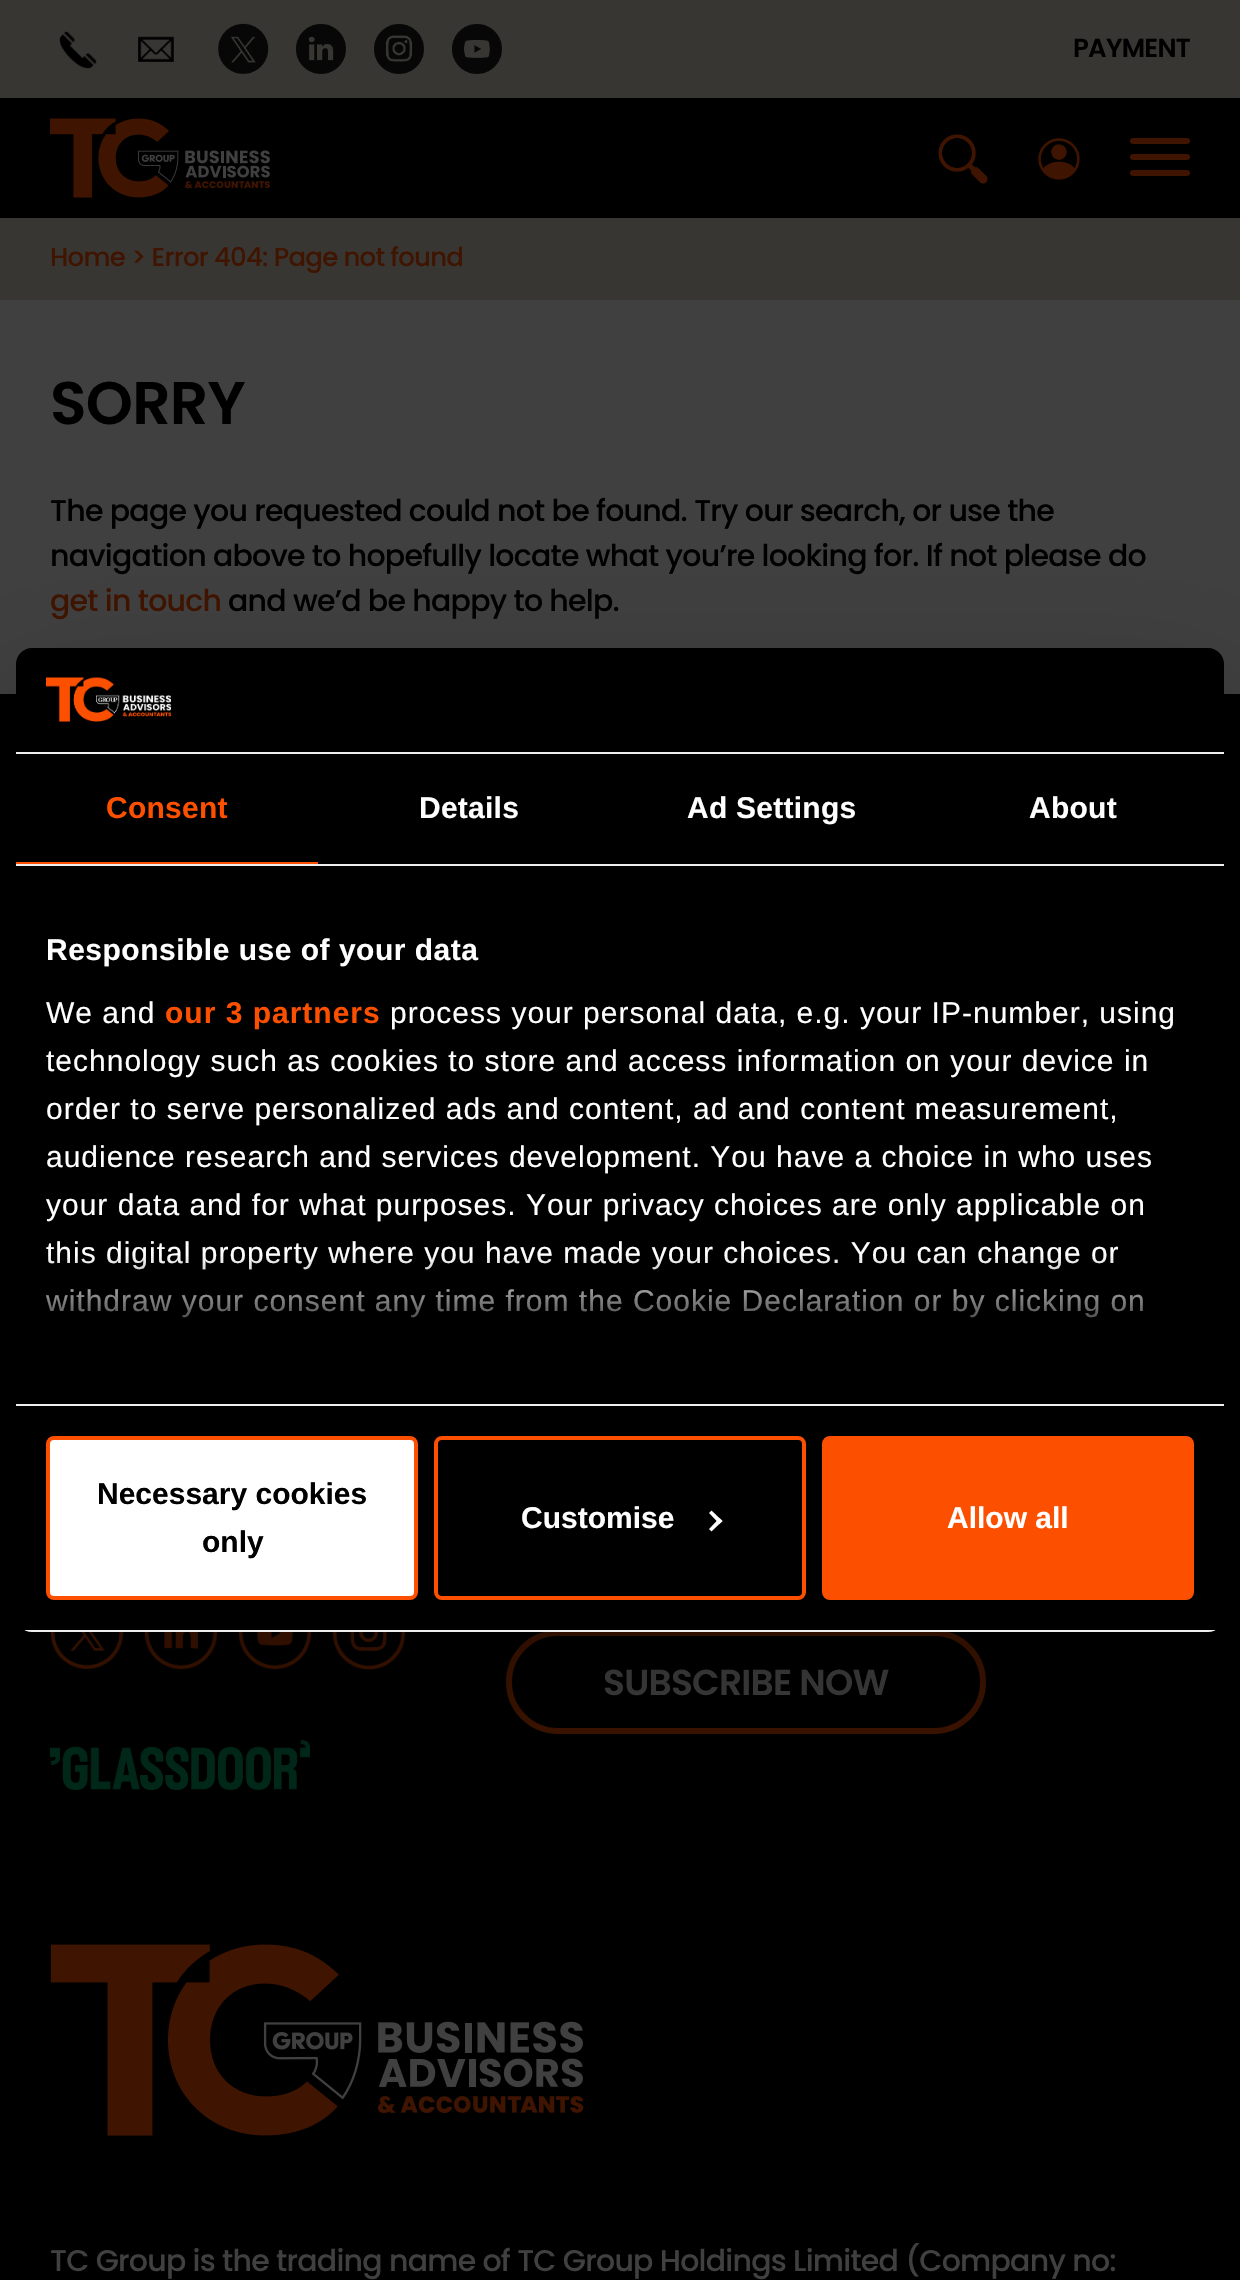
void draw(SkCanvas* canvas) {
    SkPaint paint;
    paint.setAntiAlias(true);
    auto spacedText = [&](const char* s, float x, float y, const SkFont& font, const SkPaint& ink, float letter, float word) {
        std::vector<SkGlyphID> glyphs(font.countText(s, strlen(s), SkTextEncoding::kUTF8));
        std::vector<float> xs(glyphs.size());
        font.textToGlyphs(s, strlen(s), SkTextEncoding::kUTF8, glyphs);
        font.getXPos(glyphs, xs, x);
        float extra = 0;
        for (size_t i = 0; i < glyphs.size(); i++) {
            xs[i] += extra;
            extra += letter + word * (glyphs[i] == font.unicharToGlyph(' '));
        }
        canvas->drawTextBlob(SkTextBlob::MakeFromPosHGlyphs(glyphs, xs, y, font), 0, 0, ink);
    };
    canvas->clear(0xFF404040);
    paint.setColor(0xFF383633);
    canvas->drawRect(SkRect::MakeXYWH(0, 0, 1240, 98), paint);
    canvas->drawImageRect(SkImages::DeferredFromEncodedData(SkData::MakeFromFileName("img1.png")), SkRect::MakeXYWH(59, 31, 38, 38), SkSamplingOptions());
    canvas->drawImageRect(SkImages::DeferredFromEncodedData(SkData::MakeFromFileName("img2.png")), SkRect::MakeXYWH(138, 36, 36, 26), SkSamplingOptions());
    canvas->drawImageRect(SkImages::DeferredFromEncodedData(SkData::MakeFromFileName("img3.png")), SkRect::MakeXYWH(218, 23, 51, 51), SkSamplingOptions());
    canvas->drawImageRect(SkImages::DeferredFromEncodedData(SkData::MakeFromFileName("img4.png")), SkRect::MakeXYWH(296, 24, 50, 50), SkSamplingOptions());
    canvas->drawImageRect(SkImages::DeferredFromEncodedData(SkData::MakeFromFileName("img5.png")), SkRect::MakeXYWH(374, 24, 50, 50), SkSamplingOptions());
    canvas->drawImageRect(SkImages::DeferredFromEncodedData(SkData::MakeFromFileName("img6.png")), SkRect::MakeXYWH(452, 24, 50, 50), SkSamplingOptions());
    SkFont font1(fontMgr->matchFamilyStyle("Poppins", SkFontStyle(600, SkFontStyle::kNormal_Width, SkFontStyle::kUpright_Slant)), 26);
    font1.setSubpixel(true);
    paint.setColor(0xFF000000);
    spacedText("PAYMENT", 1073, 57, font1, paint, -0.75f, 0);
    canvas->drawRect(SkRect::MakeXYWH(0, 98, 1240, 120), paint);
    canvas->drawImageRect(SkImages::DeferredFromEncodedData(SkData::MakeFromFileName("img7.png")), SkRect::MakeXYWH(50, 118, 220, 80), SkSamplingOptions());
    canvas->drawImageRect(SkImages::DeferredFromEncodedData(SkData::MakeFromFileName("img8.png")), SkRect::MakeXYWH(938, 134, 50, 50), SkSamplingOptions());
    canvas->drawImageRect(SkImages::DeferredFromEncodedData(SkData::MakeFromFileName("img9.png")), SkRect::MakeXYWH(1038, 138, 42, 42), SkSamplingOptions());
    paint.setColor(0xFF3F1400);
    canvas->drawRoundRect(SkRect::MakeXYWH(1130, 154, 60, 6), 3, 3, paint);
    canvas->drawRoundRect(SkRect::MakeXYWH(1130, 138, 60, 6), 3, 3, paint);
    canvas->drawRoundRect(SkRect::MakeXYWH(1130, 170, 60, 6), 3, 3, paint);
    paint.setColor(0xFF383633);
    canvas->drawRect(SkRect::MakeXYWH(0, 218, 1240, 82), paint);
    SkFont font2(fontMgr->matchFamilyStyle("Poppins", SkFontStyle(500, SkFontStyle::kNormal_Width, SkFontStyle::kUpright_Slant)), 26);
    font2.setSubpixel(true);
    paint.setColor(0xFF3F1400);
    spacedText("Home > Error 404: Page not found", 50, 266, font2, paint, -0.75f, 0);
    SkFont font3(fontMgr->matchFamilyStyle("Poppins", SkFontStyle(600, SkFontStyle::kNormal_Width, SkFontStyle::kUpright_Slant)), 60);
    font3.setSubpixel(true);
    paint.setColor(0xFF000000);
    spacedText("SORRY", 50, 424, font3, paint, -0.75f, 0);
    SkFont font4(fontMgr->matchFamilyStyle("Poppins", SkFontStyle(500, SkFontStyle::kNormal_Width, SkFontStyle::kUpright_Slant)), 30);
    font4.setSubpixel(true);
    spacedText("The page you requested could not be found. Try our search, or use the", 50, 521, font4, paint, -0.75f, 0);
    spacedText("navigation above to hopefully locate what you’re looking for. If not please do", 50, 566, font4, paint, -0.75f, 0);
    paint.setColor(0xFF3F1400);
    spacedText("get in touch", 50, 611, font4, paint, -0.75f, 0);
    paint.setColor(0xFF000000);
    spacedText("and we’d be happy to help.", 228, 611, font4, paint, -0.75f, 0);
    canvas->drawRect(SkRect::MakeXYWH(0, 694, 1240, 1586), paint);
    canvas->drawImageRect(SkImages::DeferredFromEncodedData(SkData::MakeFromFileName("img10.png")), SkRect::MakeXYWH(50, 1632, 74, 38), SkSamplingOptions());
    canvas->drawImageRect(SkImages::DeferredFromEncodedData(SkData::MakeFromFileName("img11.png")), SkRect::MakeXYWH(144, 1632, 74, 38), SkSamplingOptions());
    canvas->drawImageRect(SkImages::DeferredFromEncodedData(SkData::MakeFromFileName("img12.png")), SkRect::MakeXYWH(238, 1632, 74, 38), SkSamplingOptions());
    canvas->drawImageRect(SkImages::DeferredFromEncodedData(SkData::MakeFromFileName("img13.png")), SkRect::MakeXYWH(332, 1632, 74, 38), SkSamplingOptions());
    canvas->drawImageRect(SkImages::DeferredFromEncodedData(SkData::MakeFromFileName("img14.png")), SkRect::MakeXYWH(50, 1740, 260, 50), SkSamplingOptions());
    paint.setStyle(SkPaint::kStroke_Style);
    paint.setStrokeWidth(6);
    paint.setColor(0xFF3F1400);
    canvas->drawRoundRect(SkRect::MakeXYWH(509, 1633, 474, 98), 49, 49, paint);
    SkFont font5(fontMgr->matchFamilyStyle("Poppins", SkFontStyle(600, SkFontStyle::kNormal_Width, SkFontStyle::kUpright_Slant)), 36);
    font5.setSubpixel(true);
    paint.setStyle(SkPaint::kFill_Style);
    paint.setColor(0xFF404040);
    spacedText("SUBSCRIBE NOW", 603, 1695, font5, paint, -0.75f, 0);
    canvas->drawImageRect(SkImages::DeferredFromEncodedData(SkData::MakeFromFileName("img15.png")), SkRect::MakeXYWH(50, 1944, 534, 192), SkSamplingOptions());
    spacedText("TC Group is the trading name of TC Group Holdings Limited (Company no:", 50, 2271, font4, paint, -0.75f, 0);
    paint.setColor(0x4D000000);
    paint.setMaskFilter(SkMaskFilter::MakeBlur(kNormal_SkBlurStyle, 68));
    canvas->drawRoundRect(SkRect::MakeXYWH(16, 712, 1208, 984), 16, 16, paint);
    paint.setMaskFilter(nullptr);
    paint.setColor(0xFF000000);
    canvas->drawRoundRect(SkRect::MakeXYWH(16, 648, 1208, 984), 16, 16, paint);
    paint.setColor(0xFFEEEEEE);
    canvas->drawRect(SkRect::MakeXYWH(16, 752, 1208, 2), paint);
    canvas->drawImageRect(SkImages::DeferredFromEncodedData(SkData::MakeFromFileName("img16.png")), SkRect::MakeXYWH(46, 677, 126, 45), SkSamplingOptions());
    canvas->drawRect(SkRect::MakeXYWH(16, 864, 1208, 2), paint);
    paint.setColor(0xFFFC5000);
    canvas->drawRect(SkRect::MakeXYWH(16, 862, 302, 2), paint);
    SkFont font6(fontMgr->matchFamilyStyle("Liberation Sans", SkFontStyle::Bold()), 30);
    font6.setSubpixel(true);
    spacedText("Consent", 106, 818, font6, paint, 0.25f, 0);
    paint.setColor(0xFFFFFFFF);
    spacedText("Details", 419, 818, font6, paint, 0.25f, 0);
    spacedText("Ad Settings", 687, 818, font6, paint, 0.25f, 0);
    spacedText("About", 1029, 818, font6, paint, 0.25f, 0);
    paint.setColor(0xFFEEEEEE);
    canvas->drawRect(SkRect::MakeXYWH(16, 1404, 1208, 2), paint);
    paint.setColor(0xFFFFFFFF);
    spacedText("Responsible use of your data", 46, 960, font6, paint, 0.5f, 0);
    SkFont font7(fontMgr->matchFamilyStyle("Liberation Sans", SkFontStyle::Normal()), 30);
    font7.setSubpixel(true);
    spacedText("We and", 46, 1023, font7, paint, 1, 0);
    paint.setColor(0xFFFC5000);
    spacedText("our 3 partners", 165, 1023, font6, paint, 1, 0);
    paint.setColor(0xFFFFFFFF);
    spacedText("process your personal data, e.g. your IP-number, using", 390, 1023, font7, paint, 1, 0);
    spacedText("technology such as cookies to store and access information on your device in", 46, 1071, font7, paint, 1, 0);
    spacedText("order to serve personalized ads and content, ad and content measurement,", 46, 1119, font7, paint, 1, 0);
    spacedText("audience research and services development. You have a choice in who uses", 46, 1167, font7, paint, 1, 0);
    spacedText("your data and for what purposes. Your privacy choices are only applicable on", 46, 1215, font7, paint, 1, 0);
    spacedText("this digital property where you have made your choices. You can change or", 46, 1263, font7, paint, 1, 0);
    spacedText("withdraw your consent any time from the Cookie Declaration or by clicking on", 46, 1311, font7, paint, 1, 0);
    {
        const SkColor colors[] = {0xFF000000, 0xCC000000, 0x00000000};
        const float stops[] = {0, 0.5f, 1};
        const SkPoint ends[] = {{607, 1404}, {607, 1254}};
        paint.setShader(SkGradientShader::MakeLinear(ends, colors, stops, 3, SkTileMode::kClamp));
        paint.setAlpha(255);
    }
    canvas->drawRect(SkRect::MakeXYWH(46, 1256, 1097, 62), paint);
    canvas->save();
    canvas->clipPath(SkPathBuilder().moveTo(32, 648).lineTo(1208, 648).cubicTo(1217, 648, 1224, 655, 1224, 664).lineTo(1224, 1616).cubicTo(1224, 1625, 1217, 1632, 1208, 1632).lineTo(32, 1632).cubicTo(23, 1632, 16, 1625, 16, 1616).lineTo(16, 664).cubicTo(16, 655, 23, 648, 32, 648).close().detach(), true);
    paint.setShader(nullptr);
    paint.setColor(0xFFEEEEEE);
    canvas->drawRect(SkRect::MakeXYWH(16, 1630, 1208, 2), paint);
    canvas->restore();
    paint.setColor(0xFFFFFFFF);
    canvas->drawRoundRect(SkRect::MakeXYWH(48, 1438, 368, 160), 6, 6, paint);
    paint.setStyle(SkPaint::kStroke_Style);
    paint.setStrokeWidth(4);
    paint.setColor(0xFFFC5000);
    canvas->drawRoundRect(SkRect::MakeXYWH(48, 1438, 368, 160), 6, 6, paint);
    paint.setStyle(SkPaint::kFill_Style);
    paint.setColor(0xFF000000);
    canvas->drawString("Necessary cookies", 97, 1504, font6, paint);
    canvas->drawString("only", 202, 1552, font6, paint);
    paint.setStyle(SkPaint::kStroke_Style);
    paint.setColor(0xFFFC5000);
    canvas->drawRoundRect(SkRect::MakeXYWH(436, 1438, 368, 160), 6, 6, paint);
    paint.setStyle(SkPaint::kFill_Style);
    paint.setColor(0xFFFFFFFF);
    canvas->drawString("Customise", 521, 1528, font6, paint);
    canvas->drawPath(SkPathBuilder().moveTo(711.5f, 1510.5f).lineTo(722.5f, 1521).lineTo(719.5f, 1524).lineTo(709, 1513).close().detach(), paint);
    canvas->drawPath(SkPathBuilder().moveTo(719.5f, 1518).lineTo(722.5f, 1521).lineTo(711.5f, 1531.5f).lineTo(709, 1529).close().detach(), paint);
    paint.setColor(0xFFFC5000);
    canvas->drawRoundRect(SkRect::MakeXYWH(824, 1438, 368, 160), 6, 6, paint);
    paint.setStyle(SkPaint::kStroke_Style);
    canvas->drawRoundRect(SkRect::MakeXYWH(824, 1438, 368, 160), 6, 6, paint);
    paint.setStyle(SkPaint::kFill_Style);
    paint.setColor(0xFFFFFFFF);
    canvas->drawString("Allow all", 947, 1528, font6, paint);
}
